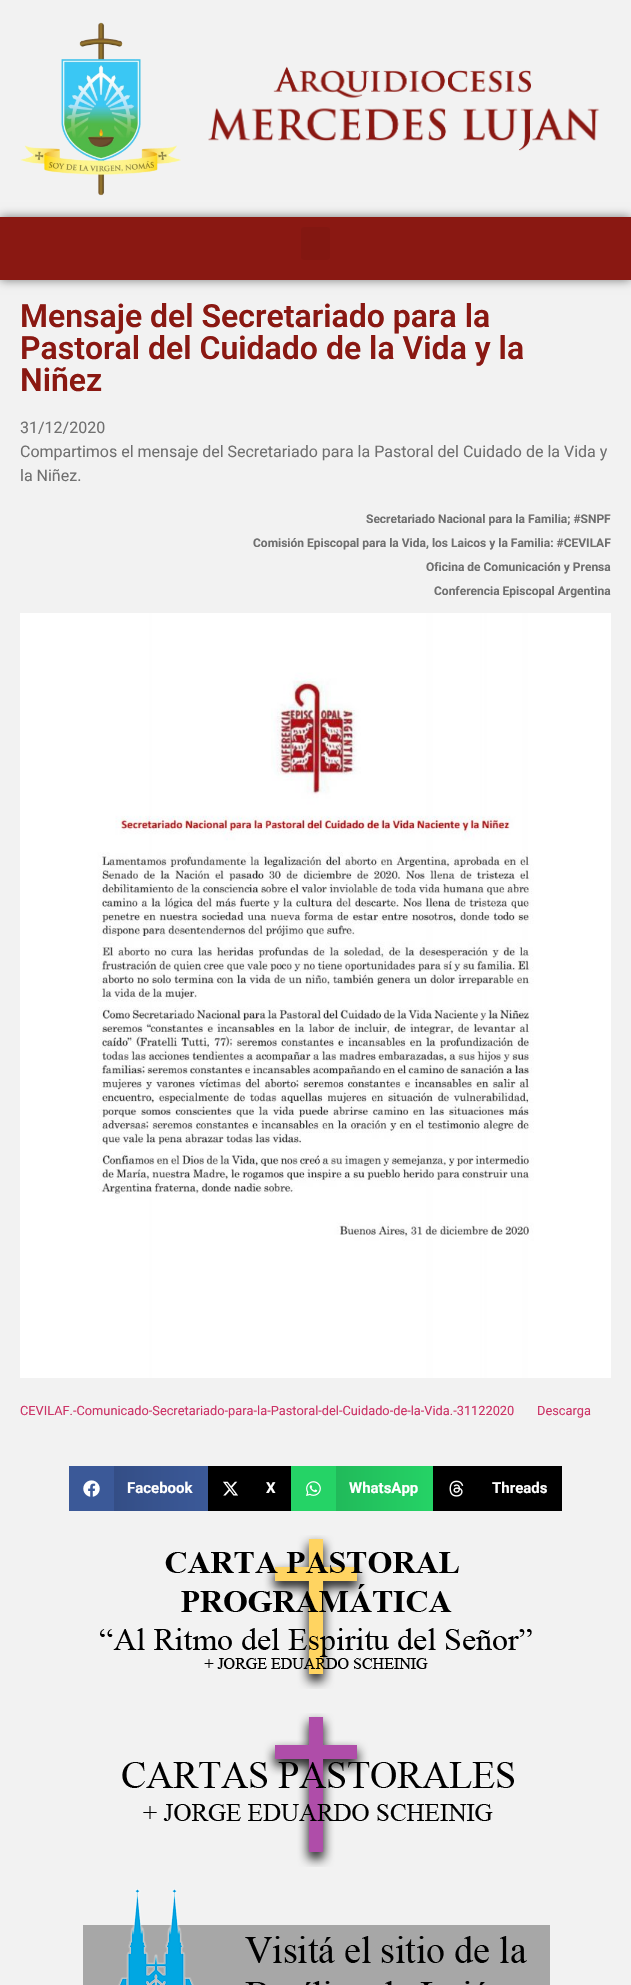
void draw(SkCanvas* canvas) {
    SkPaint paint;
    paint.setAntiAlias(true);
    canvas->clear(0xFFF2F2F2);
    canvas->drawImageRect(SkImages::DeferredFromEncodedData(SkData::MakeFromFileName("img1.png")), SkRect::MakeXYWH(20, 22, 161, 174), SkSamplingOptions());
    canvas->drawImageRect(SkImages::DeferredFromEncodedData(SkData::MakeFromFileName("img2.png")), SkRect::MakeXYWH(208, 66, 392, 85), SkSamplingOptions());
    paint.setColor(0x80000000);
    paint.setMaskFilter(SkMaskFilter::MakeBlur(kNormal_SkBlurStyle, 5));
    canvas->drawRect(SkRect::MakeXYWH(0, 217, 631, 63), paint);
    paint.setMaskFilter(nullptr);
    paint.setColor(0xFF8A1812);
    canvas->drawRect(SkRect::MakeXYWH(0, 217, 631, 63), paint);
    paint.setColor(0xFF831711);
    canvas->drawRoundRect(SkRect::MakeXYWH(301, 227, 29, 33), 3, 3, paint);
    SkFont font1(fontMgr->matchFamilyStyle("Roboto", SkFontStyle(600, SkFontStyle::kNormal_Width, SkFontStyle::kUpright_Slant)), 32);
    font1.setSubpixel(true);
    paint.setColor(0xFF8A1812);
    canvas->drawString("Mensaje del Secretariado para la", 20, 327, font1, paint);
    canvas->drawString("Pastoral del Cuidado de la Vida y la", 20, 359, font1, paint);
    canvas->drawString("Niñez", 20, 391, font1, paint);
    SkFont font2(fontMgr->matchFamilyStyle("Roboto", SkFontStyle::Normal()), 16);
    font2.setSubpixel(true);
    paint.setColor(0xFF707070);
    canvas->drawString("31/12/2020", 20, 433, font2, paint);
    canvas->drawString("Compartimos el mensaje del Secretariado para la Pastoral del Cuidado de la Vida y", 20, 457, font2, paint);
    canvas->drawString("la Niñez.", 20, 481, font2, paint);
    SkFont font3(fontMgr->matchFamilyStyle("Roboto", SkFontStyle::Bold()), 12);
    font3.setSubpixel(true);
    canvas->drawString("Secretariado Nacional para la Familia; #SNPF", 366, 523, font3, paint);
    canvas->drawString("Comisión Episcopal para la Vida, los Laicos y la Familia: #CEVILAF", 253, 547, font3, paint);
    canvas->drawString("Oficina de Comunicación y Prensa", 426, 571, font3, paint);
    canvas->drawString("Conferencia Episcopal Argentina", 434, 595, font3, paint);
    canvas->drawImageRect(SkImages::DeferredFromEncodedData(SkData::MakeFromFileName("img3.png")), SkRect::MakeXYWH(20, 613, 591, 765), SkSamplingOptions());
    SkFont font4(fontMgr->matchFamilyStyle("Roboto", SkFontStyle::Normal()), 12.8f);
    font4.setSubpixel(true);
    paint.setColor(0xFFCC3366);
    canvas->drawString("CEVILAF.-Comunicado-Secretariado-para-la-Pastoral-del-Cuidado-de-la-Vida.-31122020", 20, 1415, font4, paint);
    canvas->drawString("Descarga", 537, 1415, font4, paint);
    paint.setColor(0xFF3B5998);
    canvas->drawRect(SkRect::MakeXYWH(69, 1466, 45, 45), paint);
    canvas->drawImageRect(SkImages::DeferredFromEncodedData(SkData::MakeFromFileName("img4.png")), SkRect::MakeXYWH(83, 1480, 17, 17), SkSamplingOptions());
    {
        const SkColor colors[] = {0xFF344E86, 0xFF3B5998};
        const float stops[] = {0, 1};
        const SkPoint ends[] = {{114, 1489}, {208, 1489}};
        paint.setShader(SkGradientShader::MakeLinear(ends, colors, stops, 2, SkTileMode::kClamp));
        paint.setAlpha(255);
    }
    canvas->drawRect(SkRect::MakeXYWH(114, 1466, 94, 45), paint);
    SkFont font5(fontMgr->matchFamilyStyle("Roboto", SkFontStyle::Bold()), 15);
    font5.setSubpixel(true);
    paint.setShader(nullptr);
    paint.setColor(0xFFFFFFFF);
    canvas->drawString("Facebook", 127, 1493, font5, paint);
    paint.setColor(0xFF000000);
    canvas->drawRect(SkRect::MakeXYWH(208, 1466, 83, 45), paint);
    canvas->drawImageRect(SkImages::DeferredFromEncodedData(SkData::MakeFromFileName("img5.png")), SkRect::MakeXYWH(223, 1481, 15, 15), SkSamplingOptions());
    paint.setColor(0xFFFFFFFF);
    canvas->drawString("X", 266, 1493, font5, paint);
    paint.setColor(0xFF25D366);
    canvas->drawRect(SkRect::MakeXYWH(291, 1466, 45, 45), paint);
    canvas->drawImageRect(SkImages::DeferredFromEncodedData(SkData::MakeFromFileName("img6.png")), SkRect::MakeXYWH(306, 1481, 15, 15), SkSamplingOptions());
    {
        const SkColor colors[] = {0xFF21BA5A, 0xFF25D366};
        const float stops[] = {0, 1};
        const SkPoint ends[] = {{336, 1489}, {433, 1489}};
        paint.setShader(SkGradientShader::MakeLinear(ends, colors, stops, 2, SkTileMode::kClamp));
        paint.setAlpha(255);
    }
    canvas->drawRect(SkRect::MakeXYWH(336, 1466, 97, 45), paint);
    paint.setShader(nullptr);
    paint.setColor(0xFFFFFFFF);
    canvas->drawString("WhatsApp", 349, 1493, font5, paint);
    paint.setColor(0xFF000000);
    canvas->drawRect(SkRect::MakeXYWH(433, 1466, 129, 45), paint);
    canvas->drawImageRect(SkImages::DeferredFromEncodedData(SkData::MakeFromFileName("img7.png")), SkRect::MakeXYWH(449, 1480, 15, 17), SkSamplingOptions());
    paint.setColor(0xFFFFFFFF);
    canvas->drawString("Threads", 492, 1493, font5, paint);
    canvas->drawImageRect(SkImages::DeferredFromEncodedData(SkData::MakeFromFileName("img8.png")), SkRect::MakeXYWH(100, 1535, 432, 154), SkSamplingOptions());
    canvas->drawImageRect(SkImages::DeferredFromEncodedData(SkData::MakeFromFileName("img9.png")), SkRect::MakeXYWH(122, 1713, 392, 154), SkSamplingOptions());
    canvas->drawImageRect(SkImages::DeferredFromEncodedData(SkData::MakeFromFileName("img10.png")), SkRect::MakeXYWH(83, 1889, 467, 96), SkSamplingOptions());
}
